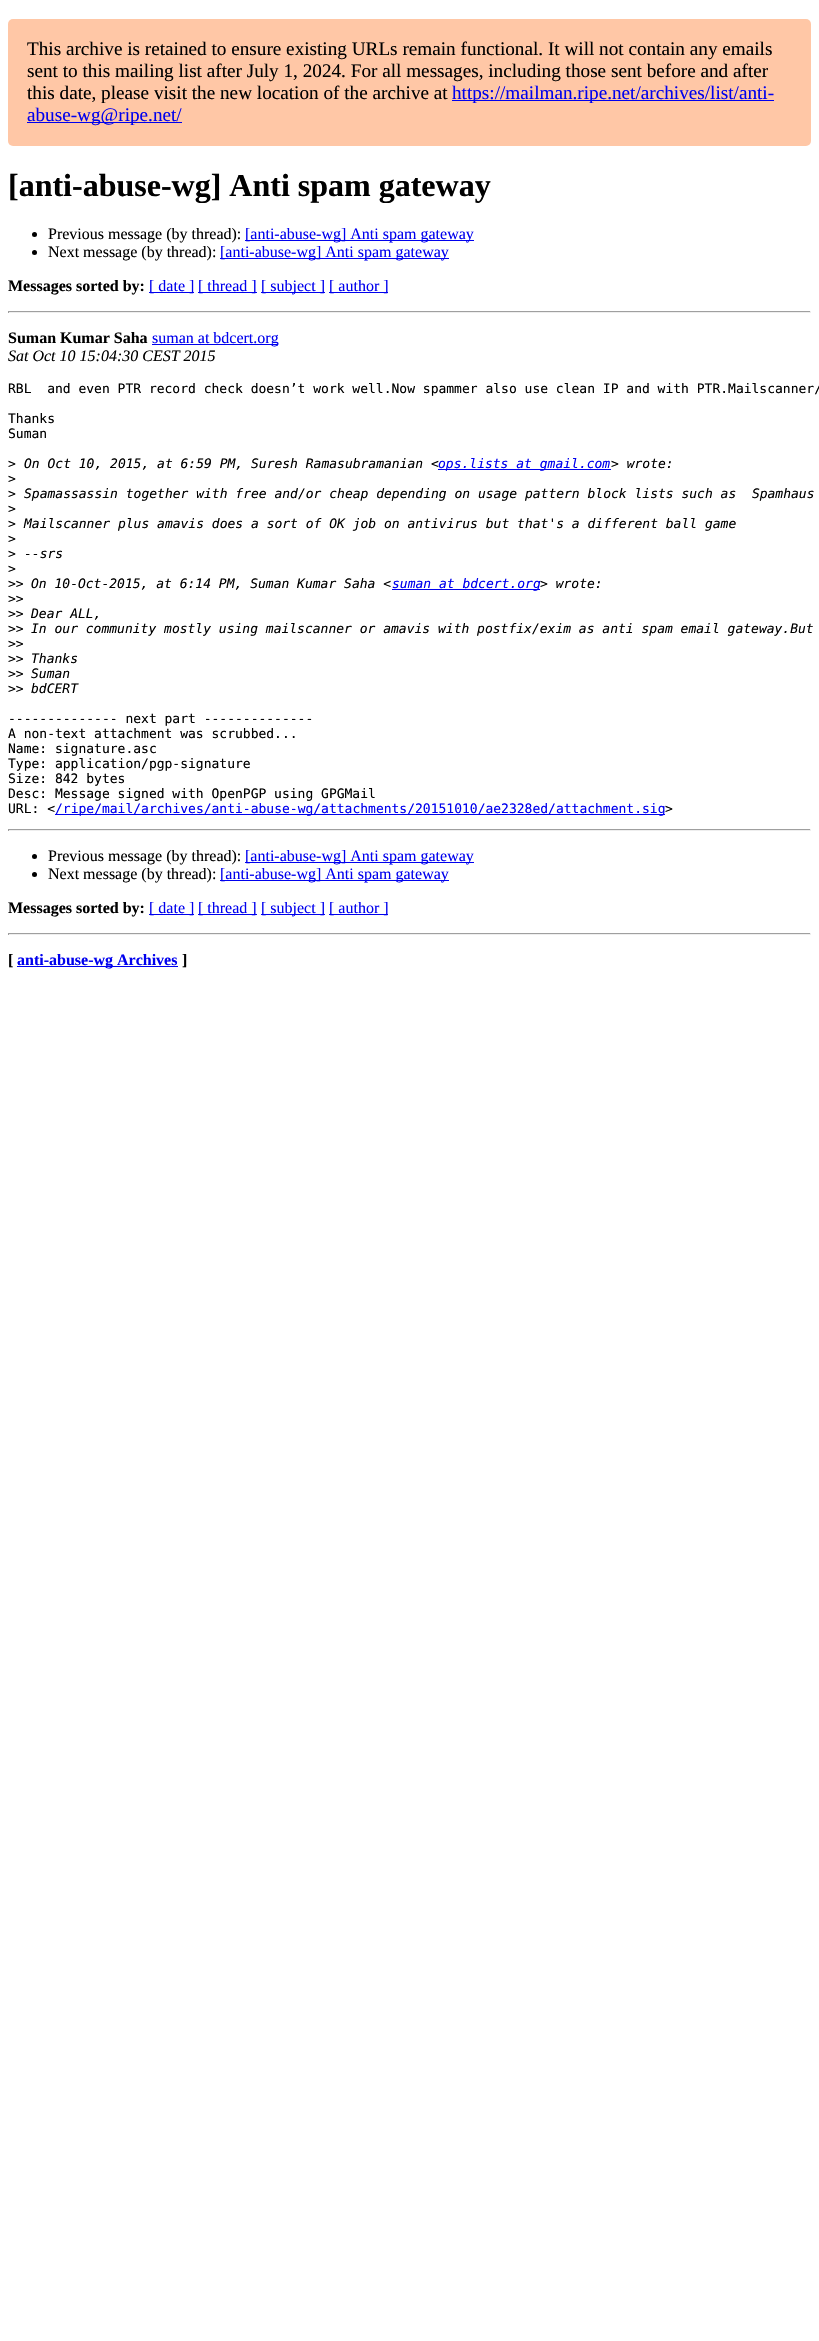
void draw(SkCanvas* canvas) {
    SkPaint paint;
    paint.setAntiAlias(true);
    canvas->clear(0xFFFFFFFF);
    paint.setColor(0xFFFFC7A6);
    canvas->drawRoundRect(SkRect::MakeXYWH(8, 19, 803, 127), 5, 5, paint);
    SkFont font1(fontMgr->matchFamilyStyle("Liberation Serif", SkFontStyle::Normal()), 19.2f);
    font1.setSubpixel(true);
    paint.setColor(0xFF000000);
    canvas->drawString("This archive is retained to ensure existing URLs remain functional. It will not contain any emails", 27, 55, font1, paint);
    canvas->drawString("sent to this mailing list after July 1, 2024. For all messages, including those sent before and after", 27, 77, font1, paint);
    canvas->drawString("this date, please visit the new location of the archive at", 27, 99, font1, paint);
    paint.setColor(0xFF0000EE);
    canvas->drawRect(SkRect::MakeXYWH(452, 100, 322, 1), paint);
    canvas->drawString("https://mailman.ripe.net/archives/list/anti-", 452, 99, font1, paint);
    canvas->drawRect(SkRect::MakeXYWH(27, 122, 155, 1), paint);
    canvas->drawString("abuse-wg@ripe.net/", 27, 121, font1, paint);
    SkFont font2(fontMgr->matchFamilyStyle("Liberation Serif", SkFontStyle::Bold()), 32);
    font2.setSubpixel(true);
    paint.setColor(0xFF000000);
    canvas->drawString("[anti-abuse-wg] Anti spam gateway", 8, 196, font2, paint);
    canvas->drawCircle(34.5f, 234.5f, 2.5f, paint);
    SkFont font3(fontMgr->matchFamilyStyle("Liberation Serif", SkFontStyle::Normal()), 16);
    font3.setSubpixel(true);
    canvas->drawString("Previous message (by thread):", 48, 239, font3, paint);
    paint.setColor(0xFF0000EE);
    canvas->drawRect(SkRect::MakeXYWH(245, 240, 229, 1), paint);
    canvas->drawString("[anti-abuse-wg] Anti spam gateway", 245, 239, font3, paint);
    paint.setColor(0xFF000000);
    canvas->drawCircle(34.5f, 252.5f, 2.5f, paint);
    canvas->drawString("Next message (by thread):", 48, 257, font3, paint);
    paint.setColor(0xFF0000EE);
    canvas->drawRect(SkRect::MakeXYWH(220, 258, 229, 1), paint);
    canvas->drawString("[anti-abuse-wg] Anti spam gateway", 220, 257, font3, paint);
    SkFont font4(fontMgr->matchFamilyStyle("Liberation Serif", SkFontStyle::Bold()), 16);
    font4.setSubpixel(true);
    paint.setColor(0xFF000000);
    canvas->drawString("Messages sorted by:", 8, 291, font4, paint);
    paint.setColor(0xFF0000EE);
    canvas->drawRect(SkRect::MakeXYWH(149, 292, 45, 1), paint);
    canvas->drawString("[ date ]", 149, 291, font3, paint);
    canvas->drawRect(SkRect::MakeXYWH(198, 292, 59, 1), paint);
    canvas->drawString("[ thread ]", 198, 291, font3, paint);
    canvas->drawRect(SkRect::MakeXYWH(261, 292, 64, 1), paint);
    canvas->drawString("[ subject ]", 261, 291, font3, paint);
    canvas->drawRect(SkRect::MakeXYWH(329, 292, 59, 1), paint);
    canvas->drawString("[ author ]", 329, 291, font3, paint);
    paint.setColor(0xFF9F9F9F);
    canvas->drawRect(SkRect::MakeXYWH(8, 311, 803, 1), paint);
    paint.setColor(0xFFEEEEEE);
    canvas->drawRect(SkRect::MakeXYWH(810, 311, 1, 2), paint);
    canvas->drawRect(SkRect::MakeXYWH(8, 312, 803, 1), paint);
    paint.setColor(0xFF9F9F9F);
    canvas->drawRect(SkRect::MakeXYWH(8, 311, 1, 2), paint);
    paint.setColor(0xFF000000);
    canvas->drawString("Suman Kumar Saha", 8, 343, font4, paint);
    paint.setColor(0xFF0000EE);
    canvas->drawRect(SkRect::MakeXYWH(152, 344, 126, 1), paint);
    canvas->drawString("suman at bdcert.org", 152, 343, font3, paint);
    SkFont font5(fontMgr->matchFamilyStyle("Liberation Serif", SkFontStyle::Italic()), 16);
    font5.setSubpixel(true);
    paint.setColor(0xFF000000);
    canvas->drawString("Sat Oct 10 15:04:30 CEST 2015", 8, 361, font5, paint);
    SkFont font6(fontMgr->matchFamilyStyle("DejaVu Sans Mono", SkFontStyle::Normal()), 13);
    font6.setSubpixel(true);
    canvas->drawString("RBL  and even PTR record check doesn’t work well.Now spammer also use clean IP and with PTR.Mailscanner/", 8, 393, font6, paint);
    canvas->drawString("Thanks", 8, 423, font6, paint);
    canvas->drawString("Suman", 8, 438, font6, paint);
    canvas->drawString(">", 8, 468, font6, paint);
    SkFont font7(fontMgr->matchFamilyStyle("DejaVu Sans Mono", SkFontStyle::Italic()), 13);
    font7.setSubpixel(true);
    canvas->drawString("On Oct 10, 2015, at 6:59 PM, Suresh Ramasubramanian <", 24, 468, font7, paint);
    paint.setColor(0xFF0000EE);
    canvas->drawRect(SkRect::MakeXYWH(438, 469, 173, 1), paint);
    canvas->drawString("ops.lists at gmail.com", 438, 468, font7, paint);
    paint.setColor(0xFF000000);
    canvas->drawString("> wrote:", 611, 468, font7, paint);
    canvas->drawString(">", 8, 483, font6, paint);
    canvas->drawString(">", 8, 498, font6, paint);
    canvas->drawString("Spamassassin together with free and/or cheap depending on usage pattern block lists such as  Spamhaus", 24, 498, font7, paint);
    canvas->drawString(">", 8, 513, font6, paint);
    canvas->drawString(">", 8, 528, font6, paint);
    canvas->drawString("Mailscanner plus amavis does a sort of OK job on antivirus but that's a different ball game", 24, 528, font7, paint);
    canvas->drawString(">", 8, 543, font6, paint);
    canvas->drawString(">", 8, 558, font6, paint);
    canvas->drawString("--srs", 24, 558, font7, paint);
    canvas->drawString(">", 8, 573, font6, paint);
    canvas->drawString(">>", 8, 588, font6, paint);
    canvas->drawString("On 10-Oct-2015, at 6:14 PM, Suman Kumar Saha <", 31, 588, font7, paint);
    paint.setColor(0xFF0000EE);
    canvas->drawRect(SkRect::MakeXYWH(392, 589, 148, 1), paint);
    canvas->drawString("suman at bdcert.org", 392, 588, font7, paint);
    paint.setColor(0xFF000000);
    canvas->drawString("> wrote:", 540, 588, font7, paint);
    canvas->drawString(">>", 8, 603, font6, paint);
    canvas->drawString(">>", 8, 618, font6, paint);
    canvas->drawString("Dear ALL,", 31, 618, font7, paint);
    canvas->drawString(">>", 8, 633, font6, paint);
    canvas->drawString("In our community mostly using mailscanner or amavis with postfix/exim as anti spam email gateway.But", 31, 633, font7, paint);
    canvas->drawString(">>", 8, 648, font6, paint);
    canvas->drawString(">>", 8, 663, font6, paint);
    canvas->drawString("Thanks", 31, 663, font7, paint);
    canvas->drawString(">>", 8, 678, font6, paint);
    canvas->drawString("Suman", 31, 678, font7, paint);
    canvas->drawString(">>", 8, 693, font6, paint);
    canvas->drawString("bdCERT", 31, 693, font7, paint);
    canvas->drawString("-------------- next part --------------", 8, 723, font6, paint);
    canvas->drawString("A non-text attachment was scrubbed...", 8, 738, font6, paint);
    canvas->drawString("Name: signature.asc", 8, 753, font6, paint);
    canvas->drawString("Type: application/pgp-signature", 8, 768, font6, paint);
    canvas->drawString("Size: 842 bytes", 8, 783, font6, paint);
    canvas->drawString("Desc: Message signed with OpenPGP using GPGMail", 8, 798, font6, paint);
    canvas->drawString("URL: <", 8, 813, font6, paint);
    paint.setColor(0xFF0000EE);
    canvas->drawRect(SkRect::MakeXYWH(55, 814, 610, 1), paint);
    canvas->drawString("/ripe/mail/archives/anti-abuse-wg/attachments/20151010/ae2328ed/attachment.sig", 55, 813, font6, paint);
    paint.setColor(0xFF000000);
    canvas->drawString(">", 665, 813, font6, paint);
    paint.setColor(0xFF9F9F9F);
    canvas->drawRect(SkRect::MakeXYWH(8, 829, 803, 1), paint);
    paint.setColor(0xFFEEEEEE);
    canvas->drawRect(SkRect::MakeXYWH(810, 829, 1, 2), paint);
    canvas->drawRect(SkRect::MakeXYWH(8, 830, 803, 1), paint);
    paint.setColor(0xFF9F9F9F);
    canvas->drawRect(SkRect::MakeXYWH(8, 829, 1, 2), paint);
    paint.setColor(0xFF000000);
    canvas->drawCircle(34.5f, 856.5f, 2.5f, paint);
    canvas->drawString("Previous message (by thread):", 48, 861, font3, paint);
    paint.setColor(0xFF0000EE);
    canvas->drawRect(SkRect::MakeXYWH(245, 862, 229, 1), paint);
    canvas->drawString("[anti-abuse-wg] Anti spam gateway", 245, 861, font3, paint);
    paint.setColor(0xFF000000);
    canvas->drawCircle(34.5f, 874.5f, 2.5f, paint);
    canvas->drawString("Next message (by thread):", 48, 879, font3, paint);
    paint.setColor(0xFF0000EE);
    canvas->drawRect(SkRect::MakeXYWH(220, 880, 229, 1), paint);
    canvas->drawString("[anti-abuse-wg] Anti spam gateway", 220, 879, font3, paint);
    paint.setColor(0xFF000000);
    canvas->drawString("Messages sorted by:", 8, 913, font4, paint);
    paint.setColor(0xFF0000EE);
    canvas->drawRect(SkRect::MakeXYWH(149, 914, 45, 1), paint);
    canvas->drawString("[ date ]", 149, 913, font3, paint);
    canvas->drawRect(SkRect::MakeXYWH(198, 914, 59, 1), paint);
    canvas->drawString("[ thread ]", 198, 913, font3, paint);
    canvas->drawRect(SkRect::MakeXYWH(261, 914, 64, 1), paint);
    canvas->drawString("[ subject ]", 261, 913, font3, paint);
    canvas->drawRect(SkRect::MakeXYWH(329, 914, 59, 1), paint);
    canvas->drawString("[ author ]", 329, 913, font3, paint);
    paint.setColor(0xFF9F9F9F);
    canvas->drawRect(SkRect::MakeXYWH(8, 933, 803, 1), paint);
    paint.setColor(0xFFEEEEEE);
    canvas->drawRect(SkRect::MakeXYWH(810, 933, 1, 2), paint);
    canvas->drawRect(SkRect::MakeXYWH(8, 934, 803, 1), paint);
    paint.setColor(0xFF9F9F9F);
    canvas->drawRect(SkRect::MakeXYWH(8, 933, 1, 2), paint);
    paint.setColor(0xFF000000);
    canvas->drawString("[", 8, 965, font4, paint);
    paint.setColor(0xFF0000EE);
    canvas->drawRect(SkRect::MakeXYWH(17, 966, 161, 1), paint);
    canvas->drawString("anti-abuse-wg Archives", 17, 965, font4, paint);
    paint.setColor(0xFF000000);
    canvas->drawString("]", 182, 965, font4, paint);
}
